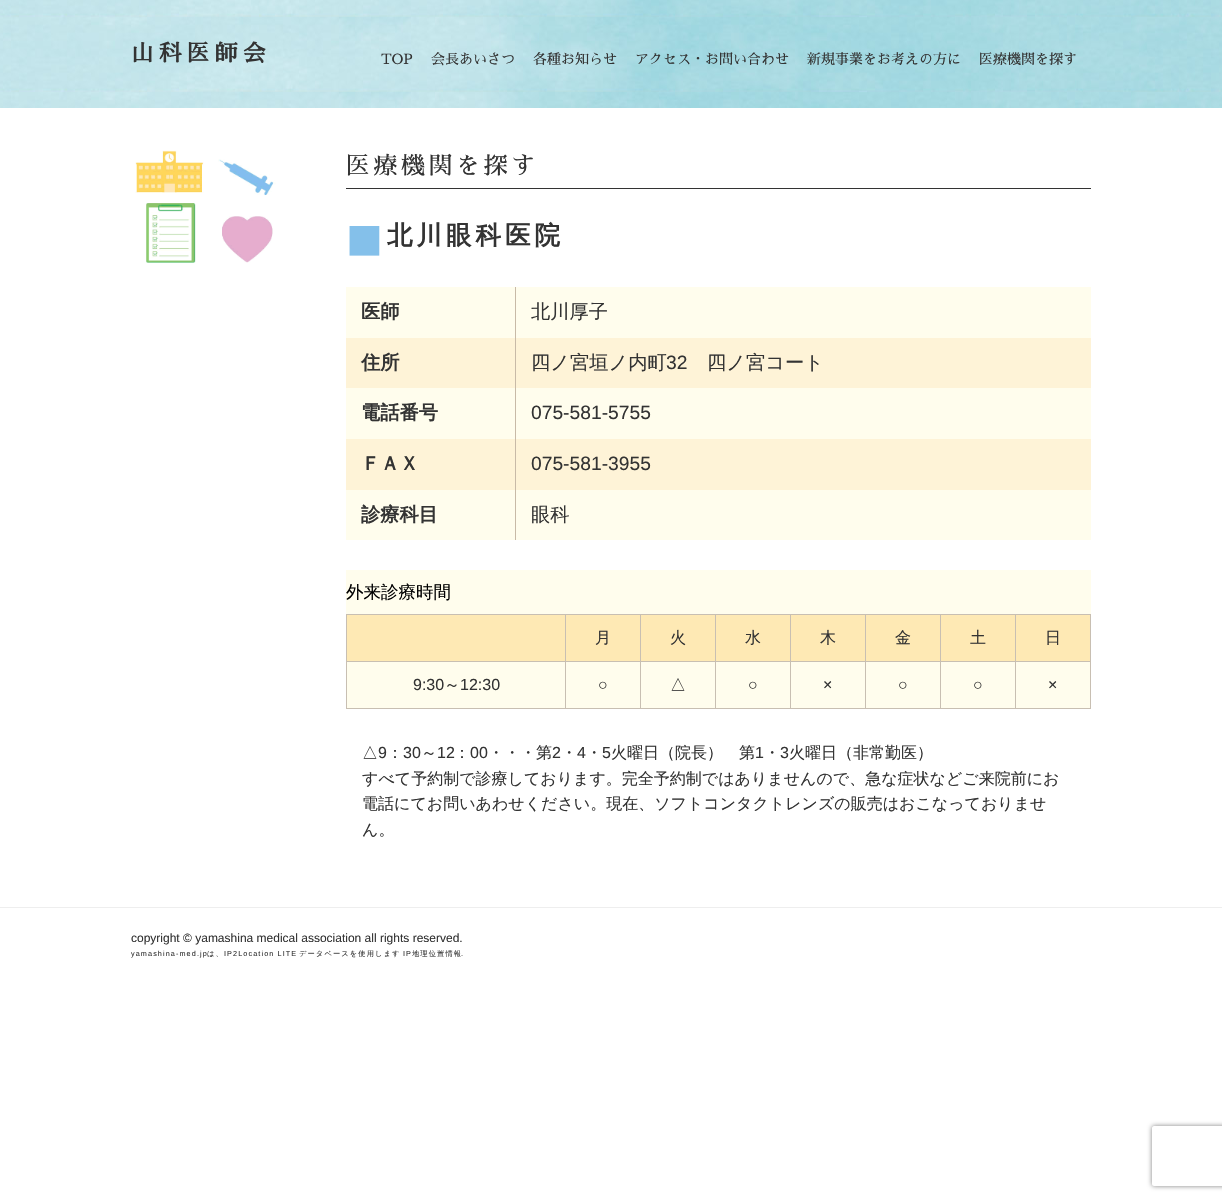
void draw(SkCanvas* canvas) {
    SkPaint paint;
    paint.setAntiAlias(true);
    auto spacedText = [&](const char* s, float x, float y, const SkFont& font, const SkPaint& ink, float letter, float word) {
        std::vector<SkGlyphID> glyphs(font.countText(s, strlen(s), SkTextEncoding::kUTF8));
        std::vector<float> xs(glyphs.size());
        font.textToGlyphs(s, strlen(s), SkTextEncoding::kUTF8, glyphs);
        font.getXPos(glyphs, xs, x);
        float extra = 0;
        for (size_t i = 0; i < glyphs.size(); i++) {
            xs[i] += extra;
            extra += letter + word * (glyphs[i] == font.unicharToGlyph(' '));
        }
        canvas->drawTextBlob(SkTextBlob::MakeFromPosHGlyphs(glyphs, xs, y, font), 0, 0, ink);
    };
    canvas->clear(0xFFFFFFFF);
    canvas->drawImageRect(SkImages::DeferredFromEncodedData(SkData::MakeFromFileName("img1.png")), SkRect::MakeXYWH(0, 0, 1222, 108), SkSamplingOptions());
    SkFont font1(fontMgr->matchFamilyStyle("Sawarabi Mincho", SkFontStyle::Bold()), 22.5f);
    font1.setSubpixel(true);
    paint.setColor(0xFF333333);
    spacedText("山科医師会", 131, 61, font1, paint, 5.5f, 0);
    SkFont font2(fontMgr->matchFamilyStyle("Sawarabi Mincho", SkFontStyle::Normal()), 14);
    font2.setSubpixel(true);
    canvas->drawString("TOP", 381, 64, font2, paint);
    canvas->drawString("会長あいさつ", 431, 64, font2, paint);
    canvas->drawString("各種お知らせ", 533, 64, font2, paint);
    canvas->drawString("アクセス・お問い合わせ", 635, 64, font2, paint);
    canvas->drawString("新規事業をお考えの方に", 807, 64, font2, paint);
    canvas->drawString("医療機関を探す", 979, 64, font2, paint);
    canvas->drawImageRect(SkImages::DeferredFromEncodedData(SkData::MakeFromFileName("img2.png")), SkRect::MakeXYWH(135, 150, 141, 113), SkSamplingOptions());
    canvas->drawRect(SkRect::MakeXYWH(346, 188, 745, 1), paint);
    SkFont font3(fontMgr->matchFamilyStyle("Sawarabi Mincho", SkFontStyle::Normal()), 24);
    font3.setSubpixel(true);
    spacedText("医療機関を探す", 346, 174, font3, paint, 3.5f, 0);
    SkFont font4(fontMgr->matchFamilyStyle("Liberation Sans", SkFontStyle::Bold()), 61);
    font4.setSubpixel(true);
    paint.setColor(0xFF84C0EA);
    spacedText("■", 346, 259, font4, paint, 4, 0);
    SkFont font5(fontMgr->matchFamilyStyle("WenQuanYi Zen Hei", SkFontStyle::Bold()), 25.5f);
    font5.setSubpixel(true);
    paint.setColor(0xFF333333);
    spacedText("北川眼科医院", 387, 244, font5, paint, 4, 0);
    paint.setColor(0xFFFFFDED);
    canvas->drawRect(SkRect::MakeXYWH(346, 287, 745, 51), paint);
    paint.setColor(0xFFC8BAA7);
    canvas->drawRect(SkRect::MakeXYWH(515, 287, 1, 51), paint);
    SkFont font6(fontMgr->matchFamilyStyle("WenQuanYi Zen Hei", SkFontStyle::Bold()), 19.25f);
    font6.setSubpixel(true);
    paint.setColor(0xFF333333);
    canvas->drawString("医師", 361, 318, font6, paint);
    SkFont font7(fontMgr->matchFamilyStyle("WenQuanYi Zen Hei", SkFontStyle(500, SkFontStyle::kNormal_Width, SkFontStyle::kUpright_Slant)), 19.25f);
    font7.setSubpixel(true);
    canvas->drawString("北川厚子", 531, 318, font7, paint);
    paint.setColor(0xFFFEF3D7);
    canvas->drawRect(SkRect::MakeXYWH(346, 338, 745, 50), paint);
    paint.setColor(0xFFC8BAA7);
    canvas->drawRect(SkRect::MakeXYWH(515, 338, 1, 50), paint);
    paint.setColor(0xFF333333);
    canvas->drawString("住所", 361, 369, font6, paint);
    canvas->drawString("四ノ宮垣ノ内町", 531, 369, font7, paint);
    SkFont font8(fontMgr->matchFamilyStyle("Liberation Sans", SkFontStyle::Normal()), 19.25f);
    font8.setSubpixel(true);
    canvas->drawString("32", 666, 369, font8, paint);
    canvas->drawString("四ノ宮コート", 707, 369, font7, paint);
    paint.setColor(0xFFFFFDED);
    canvas->drawRect(SkRect::MakeXYWH(346, 388, 745, 51), paint);
    paint.setColor(0xFFC8BAA7);
    canvas->drawRect(SkRect::MakeXYWH(515, 388, 1, 51), paint);
    paint.setColor(0xFF333333);
    canvas->drawString("電話番号", 361, 419, font6, paint);
    canvas->drawString("075-581-5755", 531, 419, font8, paint);
    paint.setColor(0xFFFEF3D7);
    canvas->drawRect(SkRect::MakeXYWH(346, 439, 745, 51), paint);
    paint.setColor(0xFFC8BAA7);
    canvas->drawRect(SkRect::MakeXYWH(515, 439, 1, 51), paint);
    paint.setColor(0xFF333333);
    canvas->drawString("ＦＡＸ", 361, 470, font6, paint);
    canvas->drawString("075-581-3955", 531, 470, font8, paint);
    paint.setColor(0xFFFFFDED);
    canvas->drawRect(SkRect::MakeXYWH(346, 490, 745, 50), paint);
    paint.setColor(0xFFC8BAA7);
    canvas->drawRect(SkRect::MakeXYWH(515, 490, 1, 50), paint);
    paint.setColor(0xFF333333);
    canvas->drawString("診療科目", 361, 521, font6, paint);
    canvas->drawString("眼科", 531, 521, font7, paint);
    paint.setColor(0xFFFFFDED);
    canvas->drawRect(SkRect::MakeXYWH(346, 570, 745, 138), paint);
    SkFont font9(fontMgr->matchFamilyStyle("WenQuanYi Zen Hei", SkFontStyle(500, SkFontStyle::kNormal_Width, SkFontStyle::kUpright_Slant)), 17.5f);
    font9.setSubpixel(true);
    paint.setColor(0xFF000000);
    canvas->drawString("外来診療時間", 346, 598, font9, paint);
    paint.setColor(0xFFFEE9B4);
    canvas->drawRect(SkRect::MakeXYWH(347, 615, 218, 46), paint);
    paint.setColor(0xFFC8BFB2);
    canvas->drawRect(SkRect::MakeXYWH(1015, 614, 76, 1), paint);
    canvas->drawRect(SkRect::MakeXYWH(1015, 661, 76, 1), paint);
    canvas->drawRect(SkRect::MakeXYWH(1090, 661, 1, 48), paint);
    canvas->drawRect(SkRect::MakeXYWH(1015, 708, 76, 1), paint);
    canvas->drawRect(SkRect::MakeXYWH(1015, 661, 1, 48), paint);
    canvas->drawRect(SkRect::MakeXYWH(940, 661, 76, 1), paint);
    canvas->drawRect(SkRect::MakeXYWH(1015, 614, 1, 48), paint);
    canvas->drawRect(SkRect::MakeXYWH(940, 614, 76, 1), paint);
    canvas->drawRect(SkRect::MakeXYWH(940, 708, 76, 1), paint);
    canvas->drawRect(SkRect::MakeXYWH(940, 661, 1, 48), paint);
    canvas->drawRect(SkRect::MakeXYWH(865, 661, 76, 1), paint);
    canvas->drawRect(SkRect::MakeXYWH(940, 614, 1, 48), paint);
    canvas->drawRect(SkRect::MakeXYWH(865, 614, 76, 1), paint);
    canvas->drawRect(SkRect::MakeXYWH(865, 708, 76, 1), paint);
    canvas->drawRect(SkRect::MakeXYWH(865, 661, 1, 48), paint);
    canvas->drawRect(SkRect::MakeXYWH(790, 661, 76, 1), paint);
    canvas->drawRect(SkRect::MakeXYWH(865, 614, 1, 48), paint);
    canvas->drawRect(SkRect::MakeXYWH(790, 614, 76, 1), paint);
    canvas->drawRect(SkRect::MakeXYWH(790, 708, 76, 1), paint);
    canvas->drawRect(SkRect::MakeXYWH(790, 661, 1, 48), paint);
    canvas->drawRect(SkRect::MakeXYWH(715, 661, 76, 1), paint);
    canvas->drawRect(SkRect::MakeXYWH(790, 614, 1, 48), paint);
    canvas->drawRect(SkRect::MakeXYWH(715, 614, 76, 1), paint);
    canvas->drawRect(SkRect::MakeXYWH(715, 708, 76, 1), paint);
    canvas->drawRect(SkRect::MakeXYWH(715, 661, 1, 48), paint);
    canvas->drawRect(SkRect::MakeXYWH(640, 661, 76, 1), paint);
    canvas->drawRect(SkRect::MakeXYWH(715, 614, 1, 48), paint);
    canvas->drawRect(SkRect::MakeXYWH(640, 614, 76, 1), paint);
    canvas->drawRect(SkRect::MakeXYWH(640, 708, 76, 1), paint);
    canvas->drawRect(SkRect::MakeXYWH(640, 661, 1, 48), paint);
    canvas->drawRect(SkRect::MakeXYWH(565, 661, 76, 1), paint);
    canvas->drawRect(SkRect::MakeXYWH(640, 614, 1, 48), paint);
    canvas->drawRect(SkRect::MakeXYWH(565, 614, 76, 1), paint);
    canvas->drawRect(SkRect::MakeXYWH(565, 708, 76, 1), paint);
    canvas->drawRect(SkRect::MakeXYWH(565, 661, 1, 48), paint);
    canvas->drawRect(SkRect::MakeXYWH(346, 661, 220, 1), paint);
    canvas->drawRect(SkRect::MakeXYWH(565, 614, 1, 48), paint);
    canvas->drawRect(SkRect::MakeXYWH(346, 614, 220, 1), paint);
    canvas->drawRect(SkRect::MakeXYWH(346, 708, 220, 1), paint);
    canvas->drawRect(SkRect::MakeXYWH(346, 661, 1, 48), paint);
    canvas->drawRect(SkRect::MakeXYWH(346, 614, 1, 48), paint);
    paint.setColor(0xFFFEE9B4);
    canvas->drawRect(SkRect::MakeXYWH(566, 615, 74, 46), paint);
    SkFont font10(fontMgr->matchFamilyStyle("WenQuanYi Zen Hei", SkFontStyle(500, SkFontStyle::kNormal_Width, SkFontStyle::kUpright_Slant)), 16);
    font10.setSubpixel(true);
    paint.setColor(0xFF333333);
    canvas->drawString("月", 595, 643, font10, paint);
    paint.setColor(0xFFFEE9B4);
    canvas->drawRect(SkRect::MakeXYWH(641, 615, 74, 46), paint);
    paint.setColor(0xFF333333);
    canvas->drawString("火", 670, 643, font10, paint);
    paint.setColor(0xFFFEE9B4);
    canvas->drawRect(SkRect::MakeXYWH(716, 615, 74, 46), paint);
    paint.setColor(0xFF333333);
    canvas->drawString("水", 745, 643, font10, paint);
    paint.setColor(0xFFFEE9B4);
    canvas->drawRect(SkRect::MakeXYWH(791, 615, 74, 46), paint);
    paint.setColor(0xFF333333);
    canvas->drawString("木", 820, 643, font10, paint);
    paint.setColor(0xFFFEE9B4);
    canvas->drawRect(SkRect::MakeXYWH(866, 615, 74, 46), paint);
    paint.setColor(0xFF333333);
    canvas->drawString("金", 895, 643, font10, paint);
    paint.setColor(0xFFFEE9B4);
    canvas->drawRect(SkRect::MakeXYWH(941, 615, 74, 46), paint);
    paint.setColor(0xFF333333);
    canvas->drawString("土", 970, 643, font10, paint);
    paint.setColor(0xFFFEE9B4);
    canvas->drawRect(SkRect::MakeXYWH(1016, 615, 74, 46), paint);
    paint.setColor(0xFFC8BFB2);
    canvas->drawRect(SkRect::MakeXYWH(1090, 614, 1, 48), paint);
    paint.setColor(0xFF333333);
    canvas->drawString("日", 1045, 643, font10, paint);
    SkFont font11(fontMgr->matchFamilyStyle("Liberation Sans", SkFontStyle::Normal()), 16);
    font11.setSubpixel(true);
    canvas->drawString("9:30", 413, 690, font11, paint);
    canvas->drawString("～", 444, 690, font10, paint);
    canvas->drawString("12:30", 460, 690, font11, paint);
    canvas->drawString("○", 598, 690, font11, paint);
    canvas->drawString("△", 670, 690, font10, paint);
    canvas->drawString("○", 748, 690, font11, paint);
    canvas->drawString("×", 823, 690, font11, paint);
    canvas->drawString("○", 898, 690, font11, paint);
    canvas->drawString("○", 973, 690, font11, paint);
    canvas->drawString("×", 1048, 690, font11, paint);
    canvas->drawString("△", 362, 758, font10, paint);
    canvas->drawString("9", 378, 758, font11, paint);
    canvas->drawString("：", 387, 758, font10, paint);
    canvas->drawString("30", 403, 758, font11, paint);
    canvas->drawString("～", 421, 758, font10, paint);
    canvas->drawString("12", 437, 758, font11, paint);
    canvas->drawString("：", 454, 758, font10, paint);
    canvas->drawString("00", 470, 758, font11, paint);
    canvas->drawString("・・・第", 488, 758, font10, paint);
    canvas->drawString("2", 552, 758, font11, paint);
    canvas->drawString("・", 561, 758, font10, paint);
    canvas->drawString("4", 577, 758, font11, paint);
    canvas->drawString("・", 586, 758, font10, paint);
    canvas->drawString("5", 602, 758, font11, paint);
    canvas->drawString("火曜日（院長）　第", 611, 758, font10, paint);
    canvas->drawString("1", 755, 758, font11, paint);
    canvas->drawString("・", 764, 758, font10, paint);
    canvas->drawString("3", 780, 758, font11, paint);
    canvas->drawString("火曜日（非常勤医）", 789, 758, font10, paint);
    canvas->drawString("すべて予約制で診療しております。完全予約制ではありませんので、急な症状などご来院前にお", 362, 784, font10, paint);
    canvas->drawString("電話にてお問いあわせください。現在、ソフトコンタクトレンズの販売はおこなっておりませ", 362, 809, font10, paint);
    canvas->drawString("ん。", 362, 835, font10, paint);
    paint.setColor(0xFFEEEEEE);
    canvas->drawRect(SkRect::MakeXYWH(0, 907, 1222, 1), paint);
    SkFont font12(fontMgr->matchFamilyStyle("Liberation Sans", SkFontStyle::Normal()), 12);
    font12.setSubpixel(true);
    paint.setColor(0xFF333333);
    canvas->drawString("copyright © yamashina medical association all rights reserved.", 131, 942, font12, paint);
    SkFont font13(fontMgr->matchFamilyStyle("Liberation Sans", SkFontStyle::Normal()), 7.25f);
    font13.setSubpixel(true);
    spacedText("yamashina-med.jp", 131, 956, font13, paint, 1.1f, 0);
    SkFont font14(fontMgr->matchFamilyStyle("WenQuanYi Zen Hei", SkFontStyle(500, SkFontStyle::kNormal_Width, SkFontStyle::kUpright_Slant)), 7.25f);
    font14.setSubpixel(true);
    spacedText("は、", 207, 956, font14, paint, 1.1f, 0);
    spacedText("IP2Location LITE", 224, 956, font13, paint, 1.1f, 0);
    spacedText("データベースを使用します", 299, 956, font14, paint, 1.1f, 0);
    spacedText("IP", 403, 956, font13, paint, 1.1f, 0);
    spacedText("地理位置情報", 412, 956, font14, paint, 1.1f, 0);
    spacedText(".", 461, 956, font13, paint, 1.1f, 0);
    canvas->save();
    canvas->clipPath(SkPathBuilder(SkPathFillType::kEvenOdd).moveTo(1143, 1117).lineTo(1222, 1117).lineTo(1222, 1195).lineTo(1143, 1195).close().moveTo(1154, 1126).lineTo(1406, 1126).cubicTo(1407, 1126, 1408, 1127, 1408, 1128).lineTo(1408, 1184).cubicTo(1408, 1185, 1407, 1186, 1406, 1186).lineTo(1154, 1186).cubicTo(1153, 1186, 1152, 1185, 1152, 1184).lineTo(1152, 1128).cubicTo(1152, 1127, 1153, 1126, 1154, 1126).close().detach(), true);
    paint.setColor(0xFF808080);
    paint.setMaskFilter(SkMaskFilter::MakeBlur(kNormal_SkBlurStyle, 2.5f));
    canvas->drawRoundRect(SkRect::MakeXYWH(1152, 1126, 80, 60), 2, 2, paint);
    paint.setMaskFilter(nullptr);
    canvas->restore();
}
